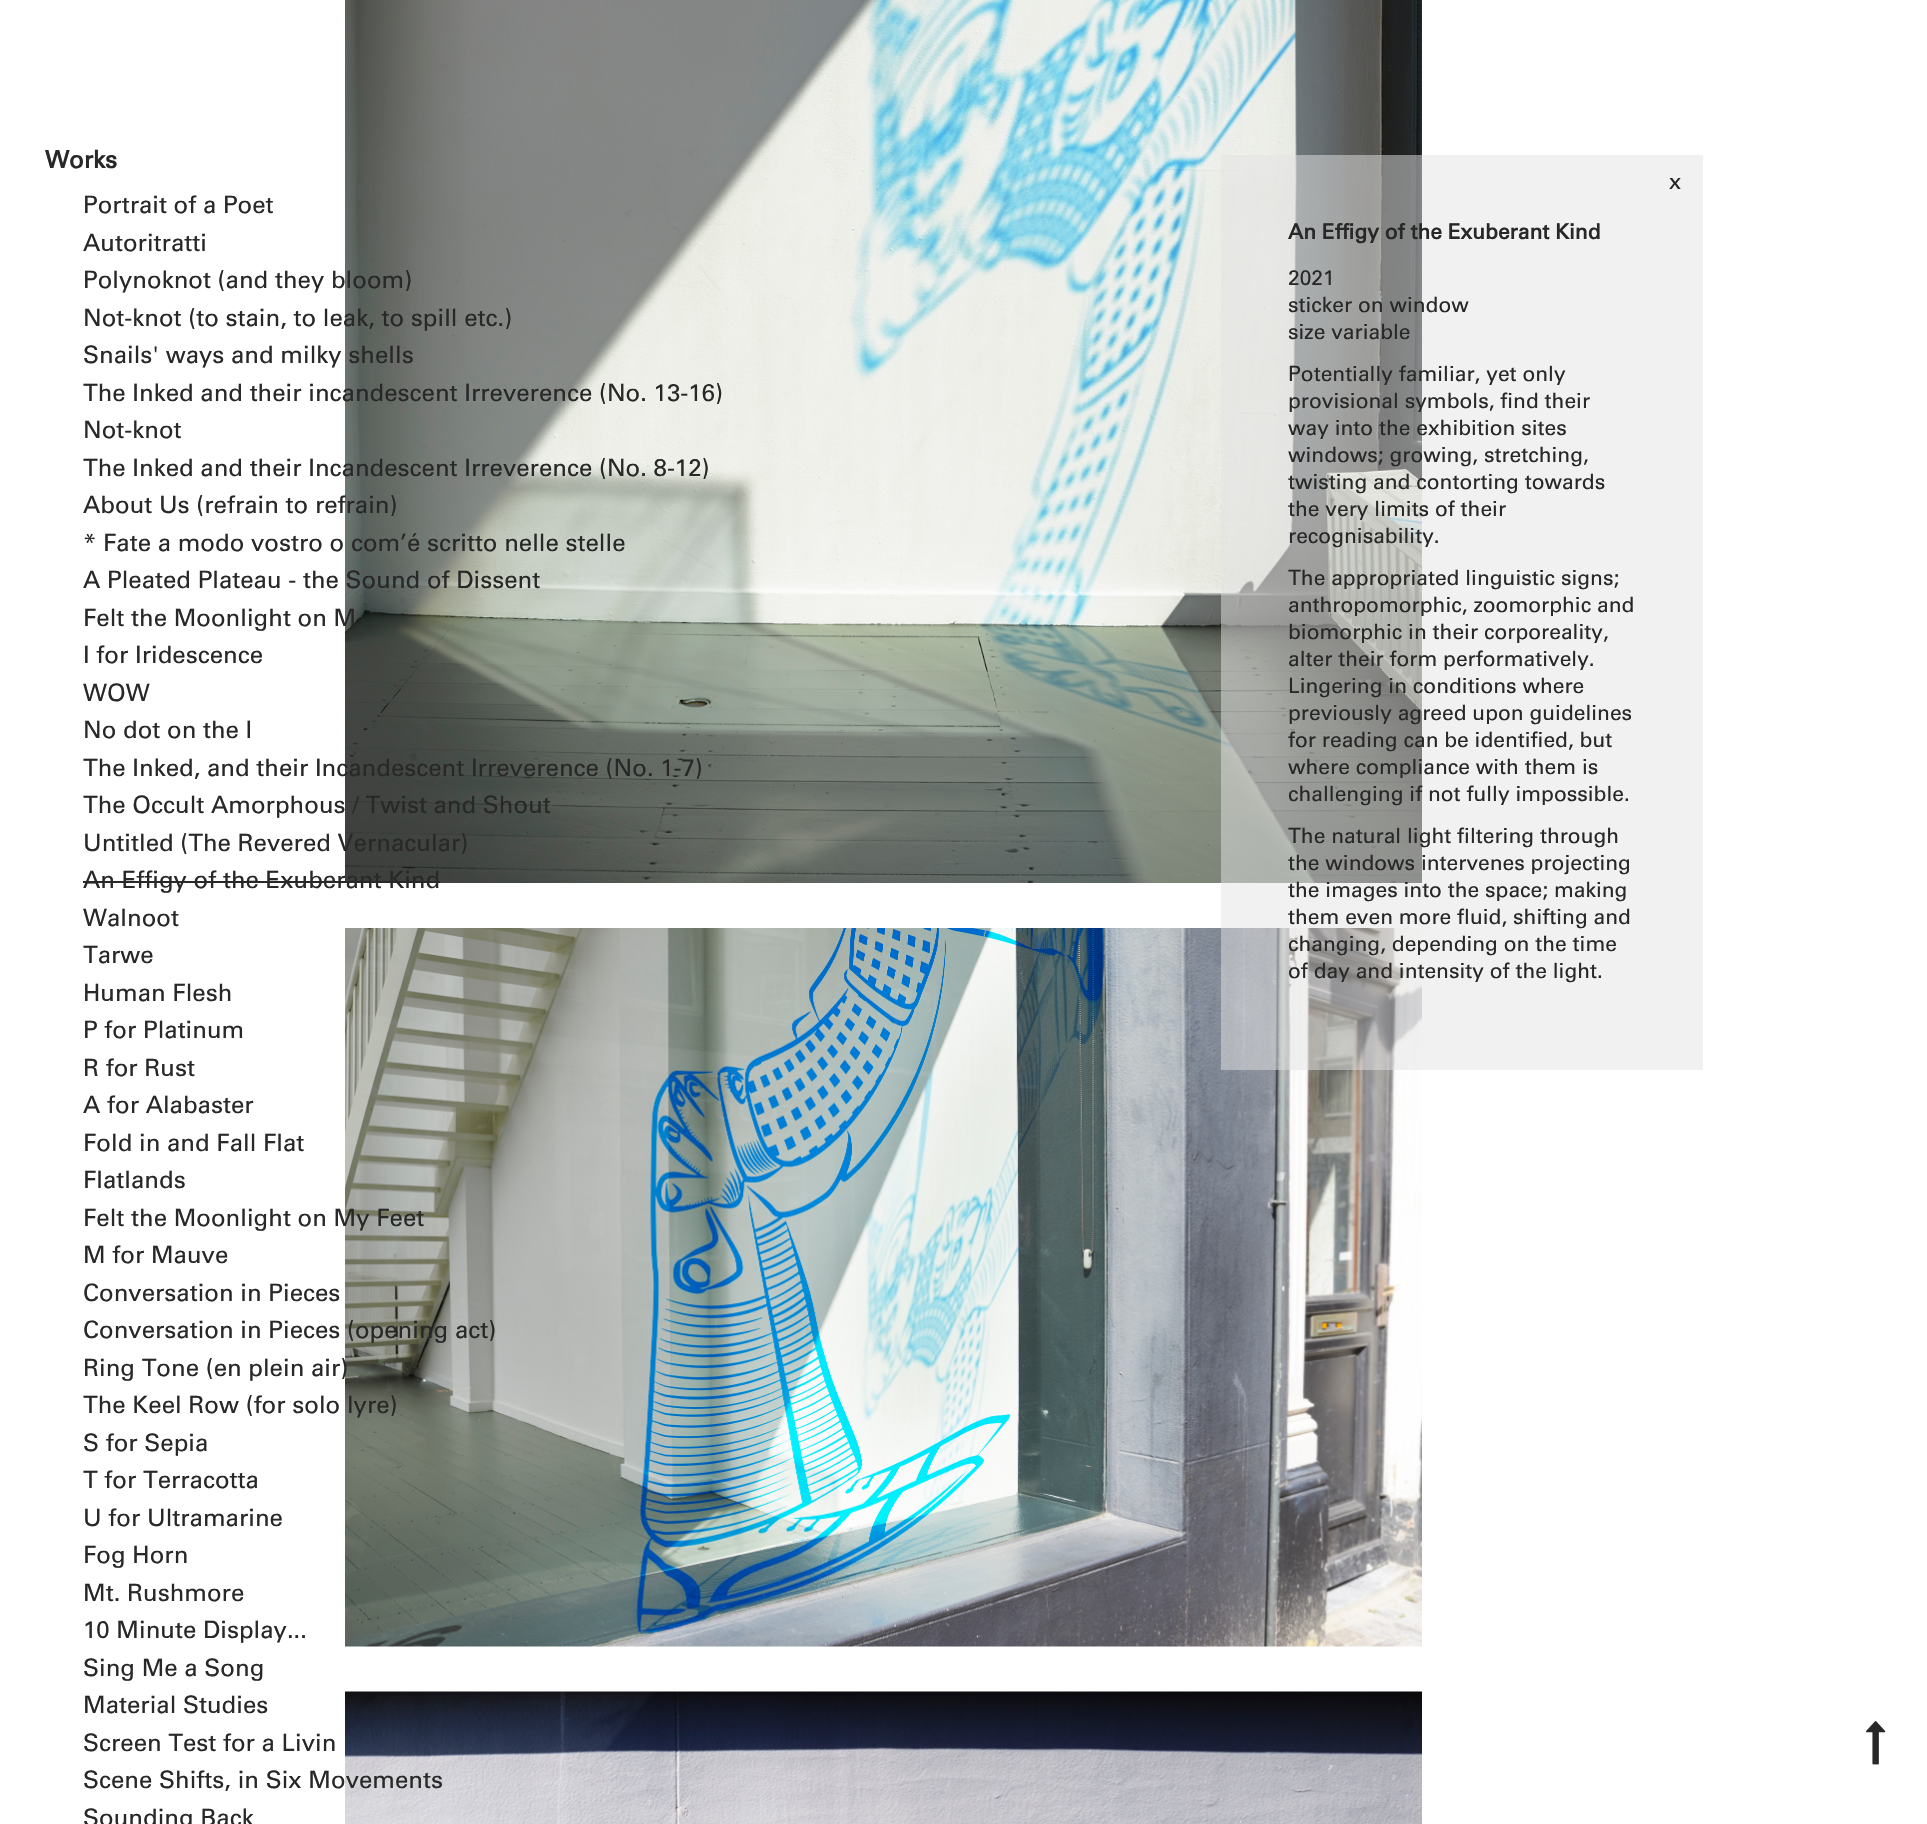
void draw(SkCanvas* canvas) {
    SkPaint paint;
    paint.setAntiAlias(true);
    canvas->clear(0xFFFFFFFF);
    canvas->drawImageRect(SkImages::DeferredFromEncodedData(SkData::MakeFromFileName("img1.png")), SkRect::MakeXYWH(345, 0, 1077, 883), SkSamplingOptions());
    canvas->drawImageRect(SkImages::DeferredFromEncodedData(SkData::MakeFromFileName("img2.png")), SkRect::MakeXYWH(345, 928, 1077, 719), SkSamplingOptions());
    canvas->drawImageRect(SkImages::DeferredFromEncodedData(SkData::MakeFromFileName("img3.png")), SkRect::MakeXYWH(345, 1691, 1077, 133), SkSamplingOptions());
    SkFont font1(fontMgr->matchFamilyStyle("Univers", SkFontStyle::Bold()), 24);
    font1.setSubpixel(true);
    paint.setColor(0xFF282828);
    canvas->drawString("Works", 45, 168, font1, paint);
    SkFont font2(fontMgr->matchFamilyStyle("Univers", SkFontStyle::Normal()), 24);
    font2.setSubpixel(true);
    canvas->drawString("Portrait of a Poet", 83, 213, font2, paint);
    canvas->drawString("Autoritratti", 83, 251, font2, paint);
    canvas->drawString("Polynoknot (and they bloom)", 83, 288, font2, paint);
    canvas->drawString("Not-knot (to stain, to leak, to spill etc.)", 83, 326, font2, paint);
    canvas->drawString("Snails' ways and milky shells", 83, 363, font2, paint);
    canvas->drawString("The Inked and their incandescent Irreverence (No. 13-16)", 83, 401, font2, paint);
    canvas->drawString("Not-knot", 83, 438, font2, paint);
    canvas->drawString("The Inked and their Incandescent Irreverence (No. 8-12)", 83, 476, font2, paint);
    canvas->drawString("About Us (refrain to refrain)", 83, 513, font2, paint);
    canvas->drawString("* Fate a modo vostro o com’é scritto nelle stelle", 83, 551, font2, paint);
    canvas->drawString("A Pleated Plateau - the Sound of Dissent", 83, 588, font2, paint);
    canvas->drawString("Felt the Moonlight on M", 83, 626, font2, paint);
    canvas->drawString("I for Iridescence", 83, 663, font2, paint);
    canvas->drawString("WOW", 83, 701, font2, paint);
    canvas->drawString("No dot on the I", 83, 738, font2, paint);
    canvas->drawString("The Inked, and their Incandescent Irreverence (No. 1-7)", 83, 776, font2, paint);
    canvas->drawString("The Occult Amorphous / Twist and Shout", 83, 813, font2, paint);
    canvas->drawString("Untitled (The Revered Vernacular)", 83, 851, font2, paint);
    canvas->drawString("An Effigy of the Exuberant Kind", 83, 888, font2, paint);
    canvas->drawRect(SkRect::MakeXYWH(83, 881, 357, 2), paint);
    canvas->drawString("Walnoot", 83, 926, font2, paint);
    canvas->drawString("Tarwe", 83, 963, font2, paint);
    canvas->drawString("Human Flesh", 83, 1001, font2, paint);
    canvas->drawString("P for Platinum", 83, 1038, font2, paint);
    canvas->drawString("R for Rust", 83, 1076, font2, paint);
    canvas->drawString("A for Alabaster", 83, 1113, font2, paint);
    canvas->drawString("Fold in and Fall Flat", 83, 1151, font2, paint);
    canvas->drawString("Flatlands", 83, 1188, font2, paint);
    canvas->drawString("Felt the Moonlight on My Feet", 83, 1226, font2, paint);
    canvas->drawString("M for Mauve", 83, 1263, font2, paint);
    canvas->drawString("Conversation in Pieces", 83, 1301, font2, paint);
    canvas->drawString("Conversation in Pieces (opening act)", 83, 1338, font2, paint);
    canvas->drawString("Ring Tone (en plein air)", 83, 1376, font2, paint);
    canvas->drawString("The Keel Row (for solo lyre)", 83, 1413, font2, paint);
    canvas->drawString("S for Sepia", 83, 1451, font2, paint);
    canvas->drawString("T for Terracotta", 83, 1488, font2, paint);
    canvas->drawString("U for Ultramarine", 83, 1526, font2, paint);
    canvas->drawString("Fog Horn", 83, 1563, font2, paint);
    canvas->drawString("Mt. Rushmore", 83, 1601, font2, paint);
    canvas->drawString("10 Minute Display...", 83, 1638, font2, paint);
    canvas->drawString("Sing Me a Song", 83, 1676, font2, paint);
    canvas->drawString("Material Studies", 83, 1713, font2, paint);
    canvas->drawString("Screen Test for a Livin", 83, 1751, font2, paint);
    canvas->drawString("Scene Shifts, in Six Movements", 83, 1788, font2, paint);
    canvas->drawString("Sounding Back", 83, 1826, font2, paint);
    paint.setColor(0x80E4E4E4);
    canvas->drawRect(SkRect::MakeXYWH(1221, 155, 482, 915), paint);
    SkFont font3(fontMgr->matchFamilyStyle("Univers", SkFontStyle::Normal()), 22);
    font3.setSubpixel(true);
    paint.setColor(0xFF282828);
    canvas->drawString("x", 1669, 189, font3, paint);
    SkFont font4(fontMgr->matchFamilyStyle("Univers", SkFontStyle::Bold()), 21);
    font4.setSubpixel(true);
    canvas->drawString("An Effigy of the Exuberant Kind", 1288, 239, font4, paint);
    SkFont font5(fontMgr->matchFamilyStyle("Univers", SkFontStyle::Normal()), 21);
    font5.setSubpixel(true);
    canvas->drawString("2021", 1288, 285, font5, paint);
    canvas->drawString("sticker on window", 1288, 312, font5, paint);
    canvas->drawString("size variable", 1288, 339, font5, paint);
    canvas->drawString("Potentially familiar, yet only", 1288, 381, font5, paint);
    canvas->drawString("provisional symbols, find their", 1288, 408, font5, paint);
    canvas->drawString("way into the exhibition sites", 1288, 435, font5, paint);
    canvas->drawString("windows; growing, stretching,", 1288, 462, font5, paint);
    canvas->drawString("twisting and contorting towards", 1288, 489, font5, paint);
    canvas->drawString("the very limits of their", 1288, 516, font5, paint);
    canvas->drawString("recognisability.", 1288, 543, font5, paint);
    canvas->drawString("The appropriated linguistic signs;", 1288, 585, font5, paint);
    canvas->drawString("anthropomorphic, zoomorphic and", 1288, 612, font5, paint);
    canvas->drawString("biomorphic in their corporeality,", 1288, 639, font5, paint);
    canvas->drawString("alter their form performatively.", 1288, 666, font5, paint);
    canvas->drawString("Lingering in conditions where", 1288, 693, font5, paint);
    canvas->drawString("previously agreed upon guidelines", 1288, 720, font5, paint);
    canvas->drawString("for reading can be identified, but", 1288, 747, font5, paint);
    canvas->drawString("where compliance with them is", 1288, 774, font5, paint);
    canvas->drawString("challenging if not fully impossible.", 1288, 801, font5, paint);
    canvas->drawString("The natural light filtering through", 1288, 843, font5, paint);
    canvas->drawString("the windows intervenes projecting", 1288, 870, font5, paint);
    canvas->drawString("the images into the space; making", 1288, 897, font5, paint);
    canvas->drawString("them even more fluid, shifting and", 1288, 924, font5, paint);
    canvas->drawString("changing, depending on the time", 1288, 951, font5, paint);
    canvas->drawString("of day and intensity of the light.", 1288, 978, font5, paint);
    canvas->drawImageRect(SkImages::DeferredFromEncodedData(SkData::MakeFromFileName("img4.png")), SkRect::MakeXYWH(1866, 1721, 20, 44), SkSamplingOptions());
}
